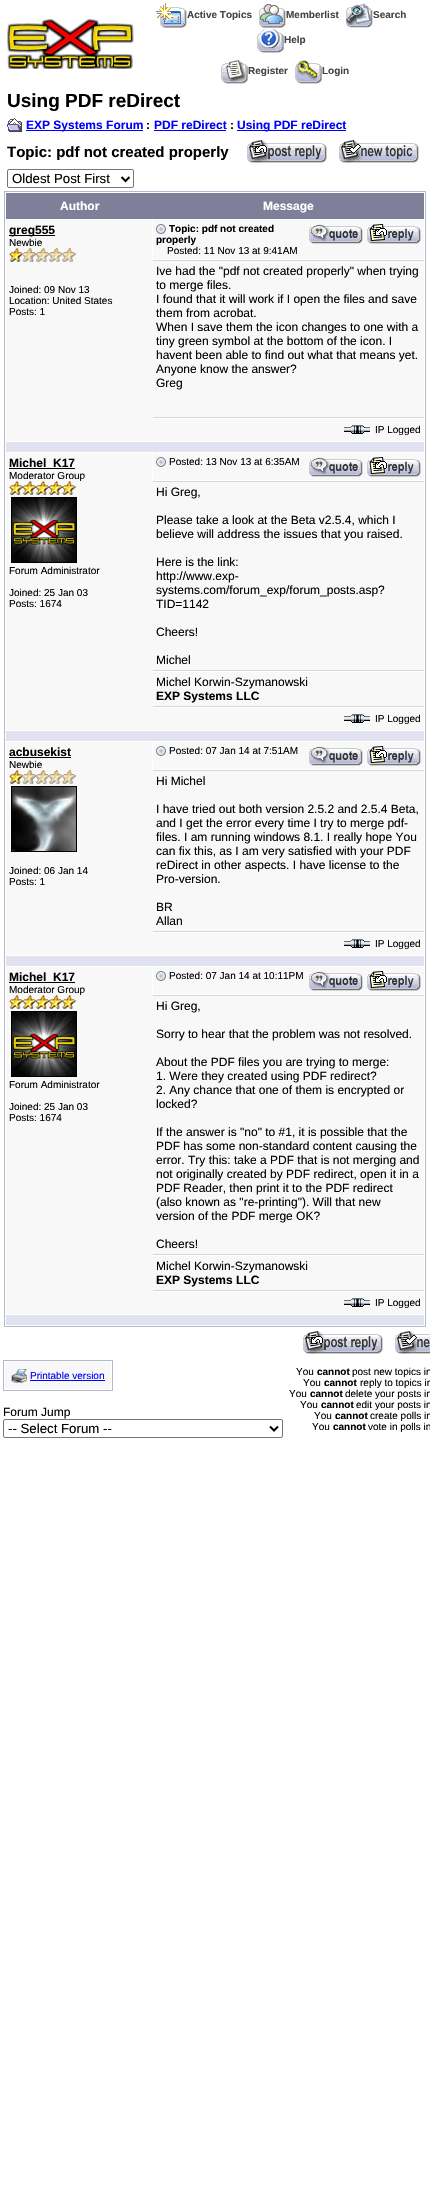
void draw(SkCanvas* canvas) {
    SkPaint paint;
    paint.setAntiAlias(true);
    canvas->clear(0xFFFFFFFF);
    canvas->drawImageRect(SkImages::DeferredFromEncodedData(SkData::MakeFromFileName("img1.png")), SkRect::MakeXYWH(7, 19, 127, 50), SkSamplingOptions());
    canvas->drawImageRect(SkImages::DeferredFromEncodedData(SkData::MakeFromFileName("img2.png")), SkRect::MakeXYWH(156, 3, 31, 25), SkSamplingOptions());
    SkFont font1(fontMgr->matchFamilyStyle("Liberation Sans", SkFontStyle::Bold()), 10);
    font1.setSubpixel(true);
    paint.setColor(0xFF444444);
    canvas->drawString("Active Topics", 187, 18, font1, paint);
    canvas->drawImageRect(SkImages::DeferredFromEncodedData(SkData::MakeFromFileName("img3.png")), SkRect::MakeXYWH(259, 4, 27, 24), SkSamplingOptions());
    canvas->drawString("Memberlist", 286, 18, font1, paint);
    canvas->drawImageRect(SkImages::DeferredFromEncodedData(SkData::MakeFromFileName("img4.png")), SkRect::MakeXYWH(346, 3, 27, 25), SkSamplingOptions());
    canvas->drawString("Search", 373, 18, font1, paint);
    canvas->drawImageRect(SkImages::DeferredFromEncodedData(SkData::MakeFromFileName("img5.png")), SkRect::MakeXYWH(257, 29, 27, 24), SkSamplingOptions());
    canvas->drawString("Help", 284, 43, font1, paint);
    canvas->drawImageRect(SkImages::DeferredFromEncodedData(SkData::MakeFromFileName("img6.png")), SkRect::MakeXYWH(221, 60, 27, 24), SkSamplingOptions());
    canvas->drawString("Register", 248, 74, font1, paint);
    canvas->drawImageRect(SkImages::DeferredFromEncodedData(SkData::MakeFromFileName("img7.png")), SkRect::MakeXYWH(295, 60, 27, 24), SkSamplingOptions());
    canvas->drawString("Login", 322, 74, font1, paint);
    SkFont font2(fontMgr->matchFamilyStyle("Liberation Sans", SkFontStyle::Bold()), 19);
    font2.setSubpixel(true);
    paint.setColor(0xFF000000);
    canvas->drawString("Using PDF reDirect", 7, 107, font2, paint);
    canvas->drawImageRect(SkImages::DeferredFromEncodedData(SkData::MakeFromFileName("img8.png")), SkRect::MakeXYWH(7, 118, 15, 14), SkSamplingOptions());
    paint.setColor(0xFF0000FF);
    canvas->drawRect(SkRect::MakeXYWH(26, 130, 117, 1), paint);
    SkFont font3(fontMgr->matchFamilyStyle("Liberation Sans", SkFontStyle::Bold()), 12);
    font3.setSubpixel(true);
    canvas->drawString("EXP Systems Forum", 26, 129, font3, paint);
    paint.setColor(0xFF000000);
    canvas->drawString(":", 146, 129, font3, paint);
    paint.setColor(0xFF0000FF);
    canvas->drawString("PDF reDirect", 154, 129, font3, paint);
    canvas->drawRect(SkRect::MakeXYWH(154, 130, 72, 1), paint);
    paint.setColor(0xFF000000);
    canvas->drawString(":", 230, 129, font3, paint);
    paint.setColor(0xFF0000FF);
    canvas->drawRect(SkRect::MakeXYWH(237, 130, 109, 1), paint);
    canvas->drawString("Using PDF reDirect", 237, 129, font3, paint);
    SkFont font4(fontMgr->matchFamilyStyle("Liberation Sans", SkFontStyle::Bold()), 15);
    font4.setSubpixel(true);
    paint.setColor(0xFF000000);
    canvas->drawString("Topic: pdf not created properly", 7, 157, font4, paint);
    canvas->drawImageRect(SkImages::DeferredFromEncodedData(SkData::MakeFromFileName("img9.png")), SkRect::MakeXYWH(247, 140, 80, 23), SkSamplingOptions());
    canvas->drawImageRect(SkImages::DeferredFromEncodedData(SkData::MakeFromFileName("img10.png")), SkRect::MakeXYWH(339, 140, 80, 23), SkSamplingOptions());
    paint.setStyle(SkPaint::kStroke_Style);
    paint.setStrokeWidth(1);
    paint.setColor(0xFF767676);
    canvas->drawRoundRect(SkRect::MakeXYWH(7.5f, 169.5f, 126, 18), 1.5f, 1.5f, paint);
    paint.setStrokeWidth(2);
    paint.setColor(0xFF000000);
    canvas->drawPath(SkPathBuilder().moveTo(121.5f, 177).lineTo(125.5f, 181).lineTo(129.5f, 177).detach(), paint);
    SkFont font5(fontMgr->matchFamilyStyle("Liberation Sans", SkFontStyle::Normal()), 13.25f);
    font5.setSubpixel(true);
    paint.setStyle(SkPaint::kFill_Style);
    canvas->drawString("Oldest Post First", 12, 183, font5, paint);
    paint.setStyle(SkPaint::kStroke_Style);
    paint.setStrokeWidth(1);
    paint.setColor(0xFFB6B9CB);
    canvas->drawRect(SkRect::MakeXYWH(4.5f, 191.5f, 421, 1135), paint);
    paint.setStyle(SkPaint::kFill_Style);
    paint.setColor(0xFF7F7F99);
    canvas->drawRect(SkRect::MakeXYWH(6, 193, 418, 26), paint);
    paint.setColor(0xFFFFFFFF);
    canvas->drawString("Author", 60, 210, font3, paint);
    canvas->drawString("Message", 263, 210, font3, paint);
    paint.setColor(0xFFF8F8F8);
    canvas->drawRect(SkRect::MakeXYWH(6, 220, 146, 199), paint);
    paint.setColor(0xFF000000);
    canvas->drawRect(SkRect::MakeXYWH(9, 235, 46, 1), paint);
    canvas->drawString("greg555", 9, 234, font3, paint);
    SkFont font6(fontMgr->matchFamilyStyle("Liberation Sans", SkFontStyle::Normal()), 10);
    font6.setSubpixel(true);
    canvas->drawString("Newbie", 9, 246, font6, paint);
    canvas->drawImageRect(SkImages::DeferredFromEncodedData(SkData::MakeFromFileName("img11.png")), SkRect::MakeXYWH(9, 248, 67, 14), SkSamplingOptions());
    canvas->drawString("Joined: 09 Nov 13", 9, 293, font6, paint);
    canvas->drawString("Location: United States", 9, 304, font6, paint);
    canvas->drawString("Posts: 1", 9, 315, font6, paint);
    paint.setColor(0xFFF8F8F8);
    canvas->drawRect(SkRect::MakeXYWH(153, 220, 271, 39), paint);
    canvas->drawImageRect(SkImages::DeferredFromEncodedData(SkData::MakeFromFileName("img12.png")), SkRect::MakeXYWH(156, 224, 10, 10), SkSamplingOptions());
    paint.setColor(0xFF000000);
    canvas->drawString("Topic: pdf not created", 169, 232, font1, paint);
    canvas->drawImageRect(SkImages::DeferredFromEncodedData(SkData::MakeFromFileName("img13.png")), SkRect::MakeXYWH(309, 224, 54, 20), SkSamplingOptions());
    canvas->drawImageRect(SkImages::DeferredFromEncodedData(SkData::MakeFromFileName("img14.png")), SkRect::MakeXYWH(367, 224, 54, 20), SkSamplingOptions());
    canvas->drawString("properly", 156, 243, font1, paint);
    canvas->drawString("Posted: 11 Nov 13 at 9:41AM", 167, 254, font6, paint);
    paint.setColor(0xFFF8F8F8);
    canvas->drawRect(SkRect::MakeXYWH(152, 260, 272, 158), paint);
    paint.setColor(0xFFD1D7DC);
    canvas->drawRect(SkRect::MakeXYWH(153, 260, 271, 1), paint);
    canvas->drawRect(SkRect::MakeXYWH(153, 417, 271, 1), paint);
    SkFont font7(fontMgr->matchFamilyStyle("Liberation Sans", SkFontStyle::Normal()), 12);
    font7.setSubpixel(true);
    paint.setColor(0xFF000000);
    canvas->drawString("Ive had the \"pdf not created properly\" when trying", 156, 275, font7, paint);
    canvas->drawString("to merge files.", 156, 289, font7, paint);
    canvas->drawString("I found that it will work if I open the files and save", 156, 303, font7, paint);
    canvas->drawString("them from acrobat.", 156, 317, font7, paint);
    canvas->drawString("When I save them the icon changes to one with a", 156, 331, font7, paint);
    canvas->drawString("tiny green symbol at the bottom of the icon. I", 156, 345, font7, paint);
    canvas->drawString("havent been able to find out what that means yet.", 156, 359, font7, paint);
    canvas->drawString("Anyone know the answer?", 156, 373, font7, paint);
    canvas->drawString("Greg", 156, 387, font7, paint);
    paint.setColor(0xFFF8F8F8);
    canvas->drawRect(SkRect::MakeXYWH(6, 419, 418, 22), paint);
    canvas->drawImageRect(SkImages::DeferredFromEncodedData(SkData::MakeFromFileName("img15.png")), SkRect::MakeXYWH(344, 425, 26, 9), SkSamplingOptions());
    paint.setColor(0xFF000000);
    canvas->drawString("IP Logged", 375, 433, font6, paint);
    paint.setColor(0xFFE1E2F0);
    canvas->drawRect(SkRect::MakeXYWH(6, 442, 418, 10), paint);
    paint.setColor(0xFFF8F8F8);
    canvas->drawRect(SkRect::MakeXYWH(6, 453, 146, 255), paint);
    paint.setColor(0xFF000000);
    canvas->drawRect(SkRect::MakeXYWH(9, 468, 66, 1), paint);
    canvas->drawString("Michel_K17", 9, 467, font3, paint);
    canvas->drawString("Moderator Group", 9, 479, font6, paint);
    canvas->drawImageRect(SkImages::DeferredFromEncodedData(SkData::MakeFromFileName("img16.png")), SkRect::MakeXYWH(9, 481, 67, 14), SkSamplingOptions());
    paint.setStyle(SkPaint::kStroke_Style);
    canvas->drawRect(SkRect::MakeXYWH(11.5f, 497.5f, 65, 65), paint);
    canvas->drawImageRect(SkImages::DeferredFromEncodedData(SkData::MakeFromFileName("img17.png")), SkRect::MakeXYWH(12, 498, 64, 64), SkSamplingOptions());
    paint.setStyle(SkPaint::kFill_Style);
    canvas->drawString("Forum Administrator", 9, 574, font6, paint);
    canvas->drawString("Joined: 25 Jan 03", 9, 596, font6, paint);
    canvas->drawString("Posts: 1674", 9, 607, font6, paint);
    paint.setColor(0xFFF8F8F8);
    canvas->drawRect(SkRect::MakeXYWH(153, 453, 271, 27), paint);
    canvas->drawImageRect(SkImages::DeferredFromEncodedData(SkData::MakeFromFileName("img12.png")), SkRect::MakeXYWH(156, 457, 10, 10), SkSamplingOptions());
    paint.setColor(0xFF000000);
    canvas->drawString("Posted: 13 Nov 13 at 6:35AM", 169, 465, font6, paint);
    canvas->drawImageRect(SkImages::DeferredFromEncodedData(SkData::MakeFromFileName("img13.png")), SkRect::MakeXYWH(309, 457, 54, 20), SkSamplingOptions());
    canvas->drawImageRect(SkImages::DeferredFromEncodedData(SkData::MakeFromFileName("img14.png")), SkRect::MakeXYWH(367, 457, 54, 20), SkSamplingOptions());
    paint.setColor(0xFFF8F8F8);
    canvas->drawRect(SkRect::MakeXYWH(152, 481, 272, 190), paint);
    paint.setColor(0xFFD1D7DC);
    canvas->drawRect(SkRect::MakeXYWH(153, 481, 271, 1), paint);
    canvas->drawRect(SkRect::MakeXYWH(153, 670, 271, 1), paint);
    paint.setColor(0xFF000000);
    canvas->drawString("Hi Greg,", 156, 496, font7, paint);
    canvas->drawString("Please take a look at the Beta v2.5.4, which I", 156, 524, font7, paint);
    canvas->drawString("believe will address the issues that you raised.", 156, 538, font7, paint);
    canvas->drawString("Here is the link:", 156, 566, font7, paint);
    canvas->drawString("http://www.exp-", 156, 580, font7, paint);
    canvas->drawString("systems.com/forum_exp/forum_posts.asp?", 156, 594, font7, paint);
    canvas->drawString("TID=1142", 156, 608, font7, paint);
    canvas->drawString("Cheers!", 156, 636, font7, paint);
    canvas->drawString("Michel", 156, 664, font7, paint);
    paint.setColor(0xFFF8F8F8);
    canvas->drawRect(SkRect::MakeXYWH(152, 672, 272, 35), paint);
    paint.setColor(0xFFD1D7DC);
    canvas->drawRect(SkRect::MakeXYWH(153, 706, 271, 1), paint);
    paint.setColor(0xFF000000);
    canvas->drawString("Michel Korwin-Szymanowski", 156, 686, font7, paint);
    canvas->drawString("EXP Systems LLC", 156, 700, font3, paint);
    paint.setColor(0xFFF8F8F8);
    canvas->drawRect(SkRect::MakeXYWH(6, 708, 418, 22), paint);
    canvas->drawImageRect(SkImages::DeferredFromEncodedData(SkData::MakeFromFileName("img15.png")), SkRect::MakeXYWH(344, 714, 26, 9), SkSamplingOptions());
    paint.setColor(0xFF000000);
    canvas->drawString("IP Logged", 375, 722, font6, paint);
    paint.setColor(0xFFE1E2F0);
    canvas->drawRect(SkRect::MakeXYWH(6, 731, 418, 10), paint);
    paint.setColor(0xFFF8F8F8);
    canvas->drawRect(SkRect::MakeXYWH(6, 742, 146, 191), paint);
    paint.setColor(0xFF000000);
    canvas->drawString("acbusekist", 9, 756, font3, paint);
    canvas->drawRect(SkRect::MakeXYWH(9, 757, 62, 1), paint);
    canvas->drawString("Newbie", 9, 768, font6, paint);
    canvas->drawImageRect(SkImages::DeferredFromEncodedData(SkData::MakeFromFileName("img11.png")), SkRect::MakeXYWH(9, 770, 67, 14), SkSamplingOptions());
    paint.setStyle(SkPaint::kStroke_Style);
    canvas->drawRect(SkRect::MakeXYWH(11.5f, 786.5f, 65, 65), paint);
    canvas->drawImageRect(SkImages::DeferredFromEncodedData(SkData::MakeFromFileName("img18.png")), SkRect::MakeXYWH(12, 787, 64, 64), SkSamplingOptions());
    paint.setStyle(SkPaint::kFill_Style);
    canvas->drawString("Joined: 06 Jan 14", 9, 874, font6, paint);
    canvas->drawString("Posts: 1", 9, 885, font6, paint);
    paint.setColor(0xFFF8F8F8);
    canvas->drawRect(SkRect::MakeXYWH(153, 742, 271, 27), paint);
    canvas->drawImageRect(SkImages::DeferredFromEncodedData(SkData::MakeFromFileName("img12.png")), SkRect::MakeXYWH(156, 746, 10, 10), SkSamplingOptions());
    paint.setColor(0xFF000000);
    canvas->drawString("Posted: 07 Jan 14 at 7:51AM", 169, 754, font6, paint);
    canvas->drawImageRect(SkImages::DeferredFromEncodedData(SkData::MakeFromFileName("img13.png")), SkRect::MakeXYWH(309, 746, 54, 20), SkSamplingOptions());
    canvas->drawImageRect(SkImages::DeferredFromEncodedData(SkData::MakeFromFileName("img14.png")), SkRect::MakeXYWH(367, 746, 54, 20), SkSamplingOptions());
    paint.setColor(0xFFF8F8F8);
    canvas->drawRect(SkRect::MakeXYWH(152, 770, 272, 162), paint);
    paint.setColor(0xFFD1D7DC);
    canvas->drawRect(SkRect::MakeXYWH(153, 770, 271, 1), paint);
    canvas->drawRect(SkRect::MakeXYWH(153, 931, 271, 1), paint);
    paint.setColor(0xFF000000);
    canvas->drawString("Hi Michel", 156, 785, font7, paint);
    canvas->drawString("I have tried out both version 2.5.2 and 2.5.4 Beta,", 156, 813, font7, paint);
    canvas->drawString("and I get the error every time I try to merge pdf-", 156, 827, font7, paint);
    canvas->drawString("files. I am running windows 8.1. I really hope You", 156, 841, font7, paint);
    canvas->drawString("can fix this, as I am very satisfied with your PDF", 156, 855, font7, paint);
    canvas->drawString("reDirect in other aspects. I have license to the", 156, 869, font7, paint);
    canvas->drawString("Pro-version.", 156, 883, font7, paint);
    canvas->drawString("BR", 156, 911, font7, paint);
    canvas->drawString("Allan", 156, 925, font7, paint);
    paint.setColor(0xFFF8F8F8);
    canvas->drawRect(SkRect::MakeXYWH(6, 933, 418, 22), paint);
    canvas->drawImageRect(SkImages::DeferredFromEncodedData(SkData::MakeFromFileName("img15.png")), SkRect::MakeXYWH(344, 939, 26, 9), SkSamplingOptions());
    paint.setColor(0xFF000000);
    canvas->drawString("IP Logged", 375, 947, font6, paint);
    paint.setColor(0xFFE1E2F0);
    canvas->drawRect(SkRect::MakeXYWH(6, 956, 418, 10), paint);
    paint.setColor(0xFFF8F8F8);
    canvas->drawRect(SkRect::MakeXYWH(6, 967, 146, 325), paint);
    paint.setColor(0xFF000000);
    canvas->drawRect(SkRect::MakeXYWH(9, 982, 66, 1), paint);
    canvas->drawString("Michel_K17", 9, 981, font3, paint);
    canvas->drawString("Moderator Group", 9, 993, font6, paint);
    canvas->drawImageRect(SkImages::DeferredFromEncodedData(SkData::MakeFromFileName("img16.png")), SkRect::MakeXYWH(9, 995, 67, 14), SkSamplingOptions());
    paint.setStyle(SkPaint::kStroke_Style);
    canvas->drawRect(SkRect::MakeXYWH(11.5f, 1011.5f, 65, 65), paint);
    canvas->drawImageRect(SkImages::DeferredFromEncodedData(SkData::MakeFromFileName("img17.png")), SkRect::MakeXYWH(12, 1012, 64, 64), SkSamplingOptions());
    paint.setStyle(SkPaint::kFill_Style);
    canvas->drawString("Forum Administrator", 9, 1088, font6, paint);
    canvas->drawString("Joined: 25 Jan 03", 9, 1110, font6, paint);
    canvas->drawString("Posts: 1674", 9, 1121, font6, paint);
    paint.setColor(0xFFF8F8F8);
    canvas->drawRect(SkRect::MakeXYWH(153, 967, 271, 27), paint);
    canvas->drawImageRect(SkImages::DeferredFromEncodedData(SkData::MakeFromFileName("img12.png")), SkRect::MakeXYWH(156, 971, 10, 10), SkSamplingOptions());
    paint.setColor(0xFF000000);
    canvas->drawString("Posted: 07 Jan 14 at 10:11PM", 169, 979, font6, paint);
    canvas->drawImageRect(SkImages::DeferredFromEncodedData(SkData::MakeFromFileName("img13.png")), SkRect::MakeXYWH(309, 971, 54, 20), SkSamplingOptions());
    canvas->drawImageRect(SkImages::DeferredFromEncodedData(SkData::MakeFromFileName("img14.png")), SkRect::MakeXYWH(367, 971, 54, 20), SkSamplingOptions());
    paint.setColor(0xFFF8F8F8);
    canvas->drawRect(SkRect::MakeXYWH(152, 995, 272, 260), paint);
    paint.setColor(0xFFD1D7DC);
    canvas->drawRect(SkRect::MakeXYWH(153, 995, 271, 1), paint);
    canvas->drawRect(SkRect::MakeXYWH(153, 1254, 271, 1), paint);
    paint.setColor(0xFF000000);
    canvas->drawString("Hi Greg,", 156, 1010, font7, paint);
    canvas->drawString("Sorry to hear that the problem was not resolved.", 156, 1038, font7, paint);
    canvas->drawString("About the PDF files you are trying to merge:", 156, 1066, font7, paint);
    canvas->drawString("1. Were they created using PDF redirect?", 156, 1080, font7, paint);
    canvas->drawString("2. Any chance that one of them is encrypted or", 156, 1094, font7, paint);
    canvas->drawString("locked?", 156, 1108, font7, paint);
    canvas->drawString("If the answer is \"no\" to #1, it is possible that the", 156, 1136, font7, paint);
    canvas->drawString("PDF has some non-standard content causing the", 156, 1150, font7, paint);
    canvas->drawString("error. Try this: take a PDF that is not merging and", 156, 1164, font7, paint);
    canvas->drawString("not originally created by PDF redirect, open it in a", 156, 1178, font7, paint);
    canvas->drawString("PDF Reader, then print it to the PDF redirect", 156, 1192, font7, paint);
    canvas->drawString("(also known as \"re-printing\"). Will that new", 156, 1206, font7, paint);
    canvas->drawString("version of the PDF merge OK?", 156, 1220, font7, paint);
    canvas->drawString("Cheers!", 156, 1248, font7, paint);
    paint.setColor(0xFFF8F8F8);
    canvas->drawRect(SkRect::MakeXYWH(152, 1256, 272, 35), paint);
    paint.setColor(0xFFD1D7DC);
    canvas->drawRect(SkRect::MakeXYWH(153, 1290, 271, 1), paint);
    paint.setColor(0xFF000000);
    canvas->drawString("Michel Korwin-Szymanowski", 156, 1270, font7, paint);
    canvas->drawString("EXP Systems LLC", 156, 1284, font3, paint);
    paint.setColor(0xFFF8F8F8);
    canvas->drawRect(SkRect::MakeXYWH(6, 1292, 418, 22), paint);
    canvas->drawImageRect(SkImages::DeferredFromEncodedData(SkData::MakeFromFileName("img15.png")), SkRect::MakeXYWH(344, 1298, 26, 9), SkSamplingOptions());
    paint.setColor(0xFF000000);
    canvas->drawString("IP Logged", 375, 1306, font6, paint);
    paint.setColor(0xFFE1E2F0);
    canvas->drawRect(SkRect::MakeXYWH(6, 1315, 418, 10), paint);
    canvas->drawImageRect(SkImages::DeferredFromEncodedData(SkData::MakeFromFileName("img9.png")), SkRect::MakeXYWH(303, 1331, 80, 23), SkSamplingOptions());
    canvas->drawImageRect(SkImages::DeferredFromEncodedData(SkData::MakeFromFileName("img19.png")), SkRect::MakeXYWH(395, 1331, 35, 23), SkSamplingOptions());
    paint.setStyle(SkPaint::kStroke_Style);
    paint.setColor(0xFFB6B9CB);
    canvas->drawRect(SkRect::MakeXYWH(3.5f, 1360.5f, 109, 30), paint);
    paint.setStyle(SkPaint::kFill_Style);
    paint.setColor(0xFFF8F8F8);
    canvas->drawRect(SkRect::MakeXYWH(5, 1362, 106, 27), paint);
    canvas->drawImageRect(SkImages::DeferredFromEncodedData(SkData::MakeFromFileName("img20.png")), SkRect::MakeXYWH(11, 1369, 16, 14), SkSamplingOptions());
    paint.setColor(0xFF0000FF);
    canvas->drawString("Printable version", 30, 1379, font6, paint);
    canvas->drawRect(SkRect::MakeXYWH(30, 1380, 75, 1), paint);
    paint.setColor(0xFF000000);
    canvas->drawString("Forum Jump", 3, 1416, font7, paint);
    paint.setStyle(SkPaint::kStroke_Style);
    paint.setColor(0xFF767676);
    canvas->drawRoundRect(SkRect::MakeXYWH(3.5f, 1419.5f, 279, 18), 1.5f, 1.5f, paint);
    paint.setStrokeWidth(2);
    paint.setColor(0xFF000000);
    canvas->drawPath(SkPathBuilder().moveTo(270, 1426.5f).lineTo(274, 1430.5f).lineTo(278, 1426.5f).detach(), paint);
    paint.setStyle(SkPaint::kFill_Style);
    canvas->drawString("-- Select Forum --", 8, 1433, font5, paint);
    canvas->drawString("You", 296, 1375, font6, paint);
    canvas->drawString("cannot", 317, 1375, font1, paint);
    canvas->drawString("post new topics in", 352, 1375, font6, paint);
    canvas->drawString("You", 303, 1386, font6, paint);
    canvas->drawString("cannot", 324, 1386, font1, paint);
    canvas->drawString("reply to topics in", 360, 1386, font6, paint);
    canvas->drawString("You", 289, 1397, font6, paint);
    canvas->drawString("cannot", 310, 1397, font1, paint);
    canvas->drawString("delete your posts in", 345, 1397, font6, paint);
    canvas->drawString("You", 300, 1408, font6, paint);
    canvas->drawString("cannot", 321, 1408, font1, paint);
    canvas->drawString("edit your posts in", 356, 1408, font6, paint);
    canvas->drawString("You", 314, 1419, font6, paint);
    canvas->drawString("cannot", 335, 1419, font1, paint);
    canvas->drawString("create polls in", 370, 1419, font6, paint);
    canvas->drawString("You", 312, 1430, font6, paint);
    canvas->drawString("cannot", 333, 1430, font1, paint);
    canvas->drawString("vote in polls in", 368, 1430, font6, paint);
}
